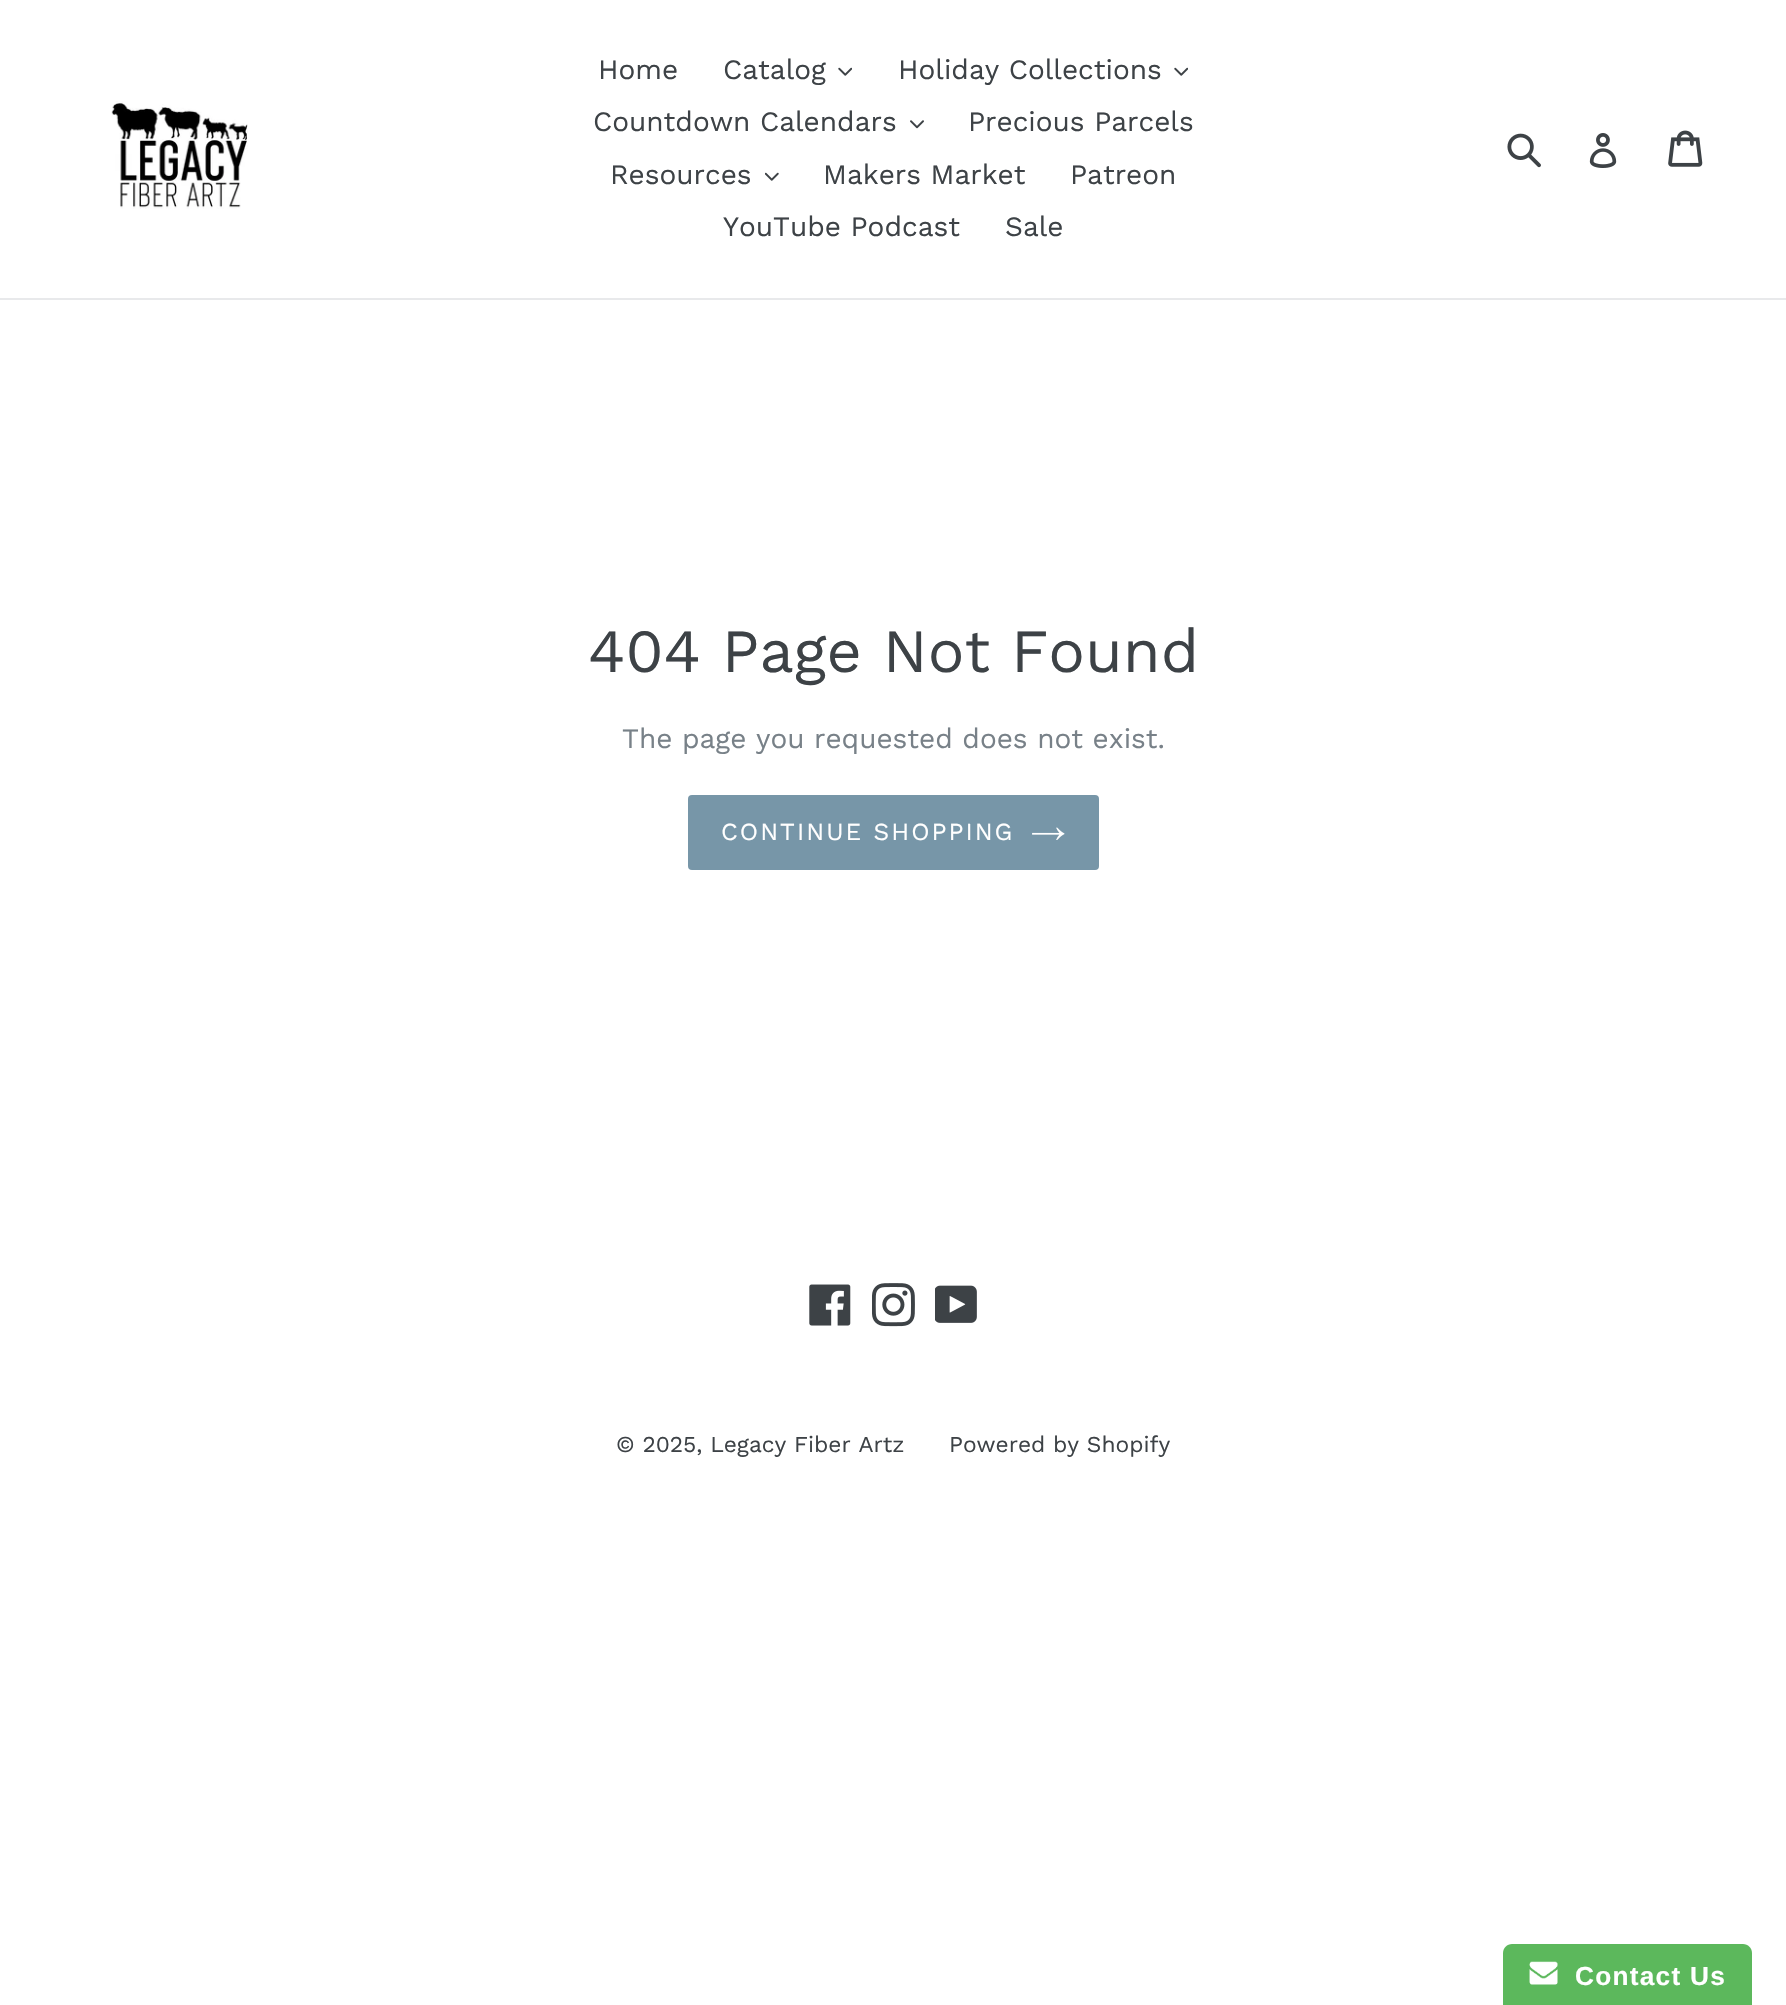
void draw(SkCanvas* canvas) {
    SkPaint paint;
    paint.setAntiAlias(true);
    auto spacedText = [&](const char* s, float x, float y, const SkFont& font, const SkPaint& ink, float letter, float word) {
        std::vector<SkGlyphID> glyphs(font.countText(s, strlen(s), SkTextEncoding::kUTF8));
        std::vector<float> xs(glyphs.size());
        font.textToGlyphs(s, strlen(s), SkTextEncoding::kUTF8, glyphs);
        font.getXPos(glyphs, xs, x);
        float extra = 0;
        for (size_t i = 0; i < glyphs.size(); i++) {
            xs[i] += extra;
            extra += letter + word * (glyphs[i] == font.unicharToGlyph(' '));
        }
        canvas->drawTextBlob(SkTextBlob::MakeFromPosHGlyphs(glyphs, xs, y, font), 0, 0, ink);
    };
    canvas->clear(0xFFFFFFFF);
    paint.setColor(0xFFE8E9EB);
    canvas->drawRect(SkRect::MakeXYWH(0, 298, 1786, 2), paint);
    canvas->drawImageRect(SkImages::DeferredFromEncodedData(SkData::MakeFromFileName("img1.png")), SkRect::MakeXYWH(111, 101, 137, 108), SkSamplingOptions());
    SkFont font1(fontMgr->matchFamilyStyle("Work Sans", SkFontStyle::Normal()), 28);
    font1.setSubpixel(true);
    paint.setColor(0xFF3D4246);
    canvas->drawString("Home", 598, 79, font1, paint);
    canvas->drawString("Catalog", 723, 79, font1, paint);
    canvas->drawImageRect(SkImages::DeferredFromEncodedData(SkData::MakeFromFileName("img2.png")), SkRect::MakeXYWH(838, 67, 14, 9), SkSamplingOptions());
    canvas->drawString("Holiday Collections", 898, 79, font1, paint);
    canvas->drawImageRect(SkImages::DeferredFromEncodedData(SkData::MakeFromFileName("img2.png")), SkRect::MakeXYWH(1174, 67, 14, 9), SkSamplingOptions());
    canvas->drawString("Countdown Calendars", 593, 131, font1, paint);
    canvas->drawImageRect(SkImages::DeferredFromEncodedData(SkData::MakeFromFileName("img3.png")), SkRect::MakeXYWH(910, 120, 14, 9), SkSamplingOptions());
    canvas->drawString("Precious Parcels", 968, 131, font1, paint);
    canvas->drawString("Resources", 610, 184, font1, paint);
    canvas->drawImageRect(SkImages::DeferredFromEncodedData(SkData::MakeFromFileName("img4.png")), SkRect::MakeXYWH(765, 172, 14, 9), SkSamplingOptions());
    canvas->drawString("Makers Market", 823, 184, font1, paint);
    canvas->drawString("Patreon", 1070, 184, font1, paint);
    canvas->drawString("YouTube Podcast", 723, 236, font1, paint);
    canvas->drawString("Sale", 1005, 236, font1, paint);
    canvas->drawImageRect(SkImages::DeferredFromEncodedData(SkData::MakeFromFileName("img5.png")), SkRect::MakeXYWH(1507, 133, 34, 35), SkSamplingOptions());
    canvas->drawImageRect(SkImages::DeferredFromEncodedData(SkData::MakeFromFileName("img6.png")), SkRect::MakeXYWH(1589, 133, 28, 35), SkSamplingOptions());
    canvas->drawImageRect(SkImages::DeferredFromEncodedData(SkData::MakeFromFileName("img7.png")), SkRect::MakeXYWH(1668, 130, 35, 37), SkSamplingOptions());
    SkFont font2(fontMgr->matchFamilyStyle("Work Sans", SkFontStyle::Normal()), 61.25f);
    font2.setSubpixel(true);
    canvas->drawString("404 Page Not Found", 588, 672, font2, paint);
    paint.setColor(0xFF788188);
    canvas->drawString("The page you requested does not exist.", 622, 748, font1, paint);
    paint.setColor(0xFF7796A8);
    canvas->drawRoundRect(SkRect::MakeXYWH(688, 795, 411, 75), 4, 4, paint);
    SkFont font3(fontMgr->matchFamilyStyle("Work Sans", SkFontStyle::Normal()), 24.5f);
    font3.setSubpixel(true);
    paint.setColor(0xFFFFFFFF);
    spacedText("CONTINUE SHOPPING", 721, 840, font3, paint, 2, 0);
    canvas->drawImageRect(SkImages::DeferredFromEncodedData(SkData::MakeFromFileName("img8.png")), SkRect::MakeXYWH(1032, 827, 33, 13), SkSamplingOptions());
    canvas->drawImageRect(SkImages::DeferredFromEncodedData(SkData::MakeFromFileName("img9.png")), SkRect::MakeXYWH(809, 1284, 42, 42), SkSamplingOptions());
    canvas->drawImageRect(SkImages::DeferredFromEncodedData(SkData::MakeFromFileName("img10.png")), SkRect::MakeXYWH(872, 1283, 43, 44), SkSamplingOptions());
    canvas->drawImageRect(SkImages::DeferredFromEncodedData(SkData::MakeFromFileName("img11.png")), SkRect::MakeXYWH(935, 1285, 42, 38), SkSamplingOptions());
    SkFont font4(fontMgr->matchFamilyStyle("Work Sans", SkFontStyle::Normal()), 22.75f);
    font4.setSubpixel(true);
    paint.setColor(0xFF3D4246);
    canvas->drawString("© 2025, Legacy Fiber Artz", 616, 1452, font4, paint);
    canvas->drawString("Powered by Shopify", 949, 1452, font4, paint);
    paint.setColor(0xFF5CB85C);
    canvas->drawPath(SkPathBuilder().moveTo(1512, 1944).lineTo(1743, 1944).cubicTo(1748, 1944, 1752, 1948, 1752, 1953).lineTo(1752, 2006).lineTo(1503, 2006).lineTo(1503, 1953).cubicTo(1503, 1948, 1507, 1944, 1512, 1944).close().detach(), paint);
    canvas->drawImageRect(SkImages::DeferredFromEncodedData(SkData::MakeFromFileName("img12.png")), SkRect::MakeXYWH(1529, 1961, 29, 24), SkSamplingOptions());
    SkFont font5(fontMgr->matchFamilyStyle("Liberation Sans", SkFontStyle::Bold()), 26.25f);
    font5.setSubpixel(true);
    paint.setColor(0xFFFFFFFF);
    spacedText("Contact Us", 1575, 1985, font5, paint, 1.25f, 0);
}
